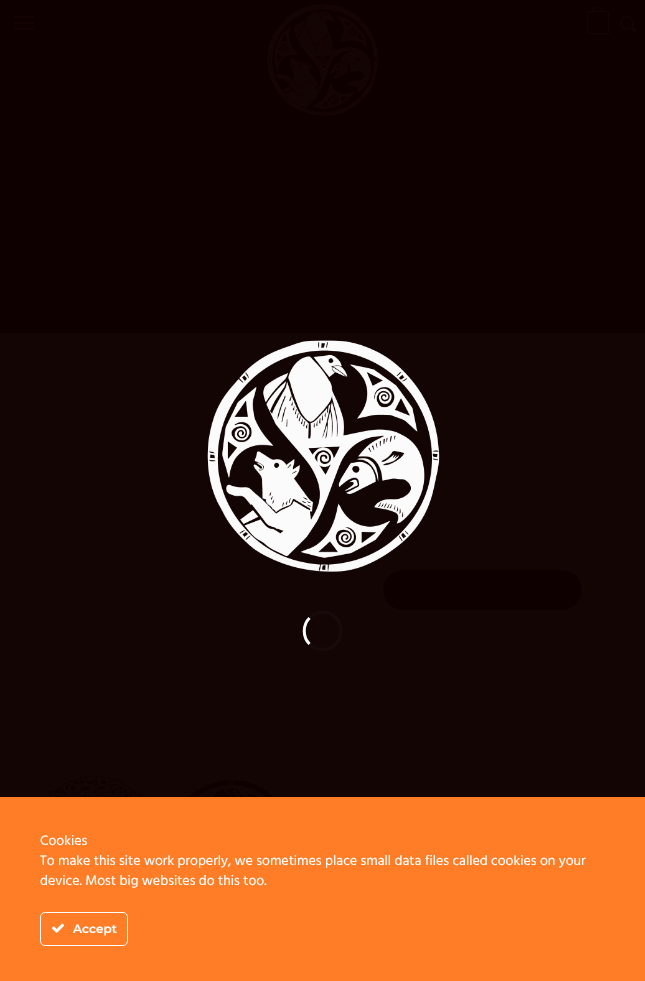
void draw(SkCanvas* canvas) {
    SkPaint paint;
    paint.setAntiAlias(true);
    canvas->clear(0xFF140505);
    paint.setColor(0xFF0F0000);
    canvas->drawRect(SkRect::MakeXYWH(0, 0, 645, 333), paint);
    canvas->drawImageRect(SkImages::DeferredFromEncodedData(SkData::MakeFromFileName("img1.png")), SkRect::MakeXYWH(14, 15, 21, 15), SkSamplingOptions());
    canvas->drawImageRect(SkImages::DeferredFromEncodedData(SkData::MakeFromFileName("img2.png")), SkRect::MakeXYWH(267, 4, 112, 112), SkSamplingOptions());
    paint.setStyle(SkPaint::kStroke_Style);
    paint.setStrokeWidth(1);
    paint.setColor(0xFF140505);
    canvas->drawRect(SkRect::MakeXYWH(587.5f, 11.5f, 21, 22), paint);
    paint.setStyle(SkPaint::kFill_Style);
    canvas->drawPath(SkPathBuilder(SkPathFillType::kEvenOdd).moveTo(597.5f, 6).cubicTo(601, 6, 603, 9, 603, 12).lineTo(592, 12).cubicTo(592, 9, 594, 6, 597.5f, 6).close().moveTo(597.5f, 7).cubicTo(600, 7, 602, 9.5f, 602, 12).lineTo(593, 12).cubicTo(593, 9.5f, 595, 7, 597.5f, 7).close().detach(), paint);
    canvas->drawImageRect(SkImages::DeferredFromEncodedData(SkData::MakeFromFileName("img3.png")), SkRect::MakeXYWH(620, 16, 16, 16), SkSamplingOptions());
    paint.setColor(0xFF0F0000);
    canvas->drawRoundRect(SkRect::MakeXYWH(383, 570, 199, 40), 20, 20, paint);
    canvas->drawImageRect(SkImages::DeferredFromEncodedData(SkData::MakeFromFileName("img4.png")), SkRect::MakeXYWH(207, 340, 233, 232), SkSamplingOptions());
    paint.setStyle(SkPaint::kStroke_Style);
    paint.setStrokeWidth(3);
    paint.setColor(0xFF170A0A);
    canvas->drawPath(SkPathBuilder().moveTo(309.5f, 618).cubicTo(314, 613.5f, 320, 611.5f, 326, 612.5f).cubicTo(348, 617, 344.5f, 649.5f, 322.5f, 649.5f).cubicTo(317.5f, 649.5f, 313, 647.5f, 309.5f, 644).detach(), paint);
    paint.setColor(0xFFFFFFFF);
    canvas->drawPath(SkPathBuilder().moveTo(309.5f, 644).cubicTo(302.5f, 637, 302.5f, 625, 309.5f, 618).detach(), paint);
    canvas->drawImageRect(SkImages::DeferredFromEncodedData(SkData::MakeFromFileName("img5.png")), SkRect::MakeXYWH(47, 775, 95, 22), SkSamplingOptions());
    canvas->drawImageRect(SkImages::DeferredFromEncodedData(SkData::MakeFromFileName("img6.png")), SkRect::MakeXYWH(188, 780, 87, 17), SkSamplingOptions());
    paint.setStyle(SkPaint::kFill_Style);
    paint.setColor(0xFFFF7D27);
    canvas->drawRect(SkRect::MakeXYWH(0, 797, 645, 184), paint);
    SkFont font1(fontMgr->matchFamilyStyle("Hind", SkFontStyle::Normal()), 14);
    font1.setSubpixel(true);
    paint.setColor(0xFFFFFFFF);
    canvas->drawString("Cookies", 40, 845, font1, paint);
    canvas->drawString("To make this site work properly, we sometimes place small data files called cookies on your", 40, 865, font1, paint);
    canvas->drawString("device. Most big websites do this too.", 40, 885, font1, paint);
    paint.setStyle(SkPaint::kStroke_Style);
    paint.setStrokeWidth(1);
    canvas->drawRoundRect(SkRect::MakeXYWH(40.5f, 912.5f, 87, 33), 4.5f, 4.5f, paint);
    canvas->drawImageRect(SkImages::DeferredFromEncodedData(SkData::MakeFromFileName("img7.png")), SkRect::MakeXYWH(52, 923, 12, 10), SkSamplingOptions());
    SkFont font2(fontMgr->matchFamilyStyle("Montserrat", SkFontStyle(600, SkFontStyle::kNormal_Width, SkFontStyle::kUpright_Slant)), 12);
    font2.setSubpixel(true);
    paint.setStyle(SkPaint::kFill_Style);
    canvas->drawString("Accept", 73, 933, font2, paint);
}
